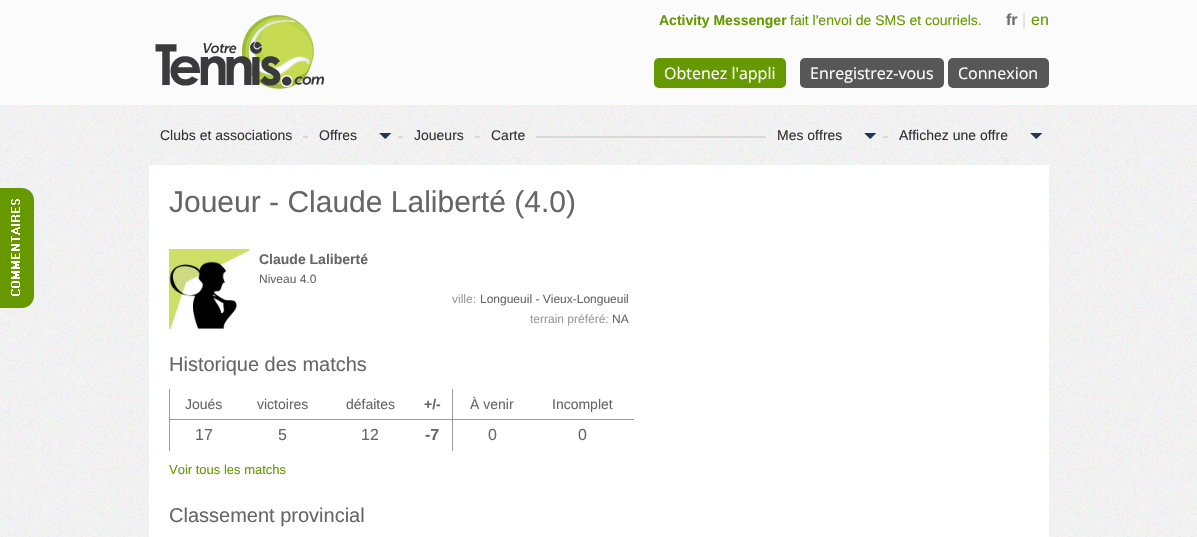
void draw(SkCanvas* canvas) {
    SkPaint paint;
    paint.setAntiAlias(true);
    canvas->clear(0xFFFBFBFB);
    canvas->drawImageRect(SkImages::DeferredFromEncodedData(SkData::MakeFromFileName("img1.png")), SkRect::MakeXYWH(155, 15, 169, 74), SkSamplingOptions());
    SkFont font1(fontMgr->matchFamilyStyle("Liberation Sans", SkFontStyle::Bold()), 14);
    font1.setSubpixel(true);
    paint.setColor(0xFF669900);
    canvas->drawString("Activity Messenger", 659, 25, font1, paint);
    SkFont font2(fontMgr->matchFamilyStyle("Liberation Sans", SkFontStyle::Normal()), 14);
    font2.setSubpixel(true);
    canvas->drawString("fait l'envoi de SMS et courriels.", 790, 25, font2, paint);
    SkFont font3(fontMgr->matchFamilyStyle("Liberation Sans", SkFontStyle::Bold()), 16);
    font3.setSubpixel(true);
    paint.setColor(0xFF6F6E6E);
    canvas->drawString("fr", 1006, 25, font3, paint);
    SkFont font4(fontMgr->matchFamilyStyle("Liberation Sans", SkFontStyle::Normal()), 16);
    font4.setSubpixel(true);
    paint.setColor(0xFFDCDADA);
    canvas->drawString("|", 1022, 25, font4, paint);
    paint.setColor(0xFF669900);
    canvas->drawString("en", 1031, 25, font4, paint);
    canvas->drawRoundRect(SkRect::MakeXYWH(654, 58, 132, 30), 5, 5, paint);
    SkFont font5(fontMgr->matchFamilyStyle("Open Sans", SkFontStyle::Normal()), 16);
    font5.setSubpixel(true);
    paint.setColor(0xFFFFFFFF);
    canvas->drawString("Obtenez l'appli", 664, 79, font5, paint);
    paint.setColor(0xFF575757);
    canvas->drawRoundRect(SkRect::MakeXYWH(800, 58, 144, 30), 5, 5, paint);
    paint.setColor(0xFFFFFFFF);
    canvas->drawString("Enregistrez-vous", 810, 79, font5, paint);
    paint.setColor(0xFF575757);
    canvas->drawRoundRect(SkRect::MakeXYWH(948, 58, 101, 30), 5, 5, paint);
    paint.setColor(0xFFFFFFFF);
    canvas->drawString("Connexion", 958, 79, font5, paint);
    canvas->drawImageRect(SkImages::DeferredFromEncodedData(SkData::MakeFromFileName("img3.png")), SkRect::MakeXYWH(0, 105, 1197, 432), SkSamplingOptions());
    paint.setColor(0xFF669900);
    canvas->drawPath(SkPathBuilder().moveTo(0, 188).lineTo(22, 188).cubicTo(28.5f, 188, 34, 193.5f, 34, 200).lineTo(34, 296).cubicTo(34, 302.5f, 28.5f, 308, 22, 308).lineTo(0, 308).close().detach(), paint);
    canvas->drawImageRect(SkImages::DeferredFromEncodedData(SkData::MakeFromFileName("img2.png")), SkRect::MakeXYWH(11, 199, 9, 97), SkSamplingOptions());
    paint.setColor(0xFFD9D9D9);
    canvas->drawRect(SkRect::MakeXYWH(303, 136, 585, 2), paint);
    canvas->drawImageRect(SkImages::DeferredFromEncodedData(SkData::MakeFromFileName("img4.png")), SkRect::MakeXYWH(149, 121, 154, 28), SkSamplingOptions());
    paint.setColor(0xFF333333);
    canvas->drawString("Clubs et associations", 160, 140, font2, paint);
    canvas->drawImageRect(SkImages::DeferredFromEncodedData(SkData::MakeFromFileName("img5.png")), SkRect::MakeXYWH(308, 121, 64, 28), SkSamplingOptions());
    canvas->drawImageRect(SkImages::DeferredFromEncodedData(SkData::MakeFromFileName("img6.png")), SkRect::MakeXYWH(372, 121, 26, 28), SkSamplingOptions());
    canvas->drawImageRect(SkImages::DeferredFromEncodedData(SkData::MakeFromFileName("img7.png")), SkRect::MakeXYWH(379, 133, 13, 6), SkSamplingOptions());
    canvas->drawString("Offres", 319, 140, font2, paint);
    canvas->drawImageRect(SkImages::DeferredFromEncodedData(SkData::MakeFromFileName("img8.png")), SkRect::MakeXYWH(403, 121, 72, 28), SkSamplingOptions());
    canvas->drawString("Joueurs", 414, 140, font2, paint);
    canvas->drawImageRect(SkImages::DeferredFromEncodedData(SkData::MakeFromFileName("img9.png")), SkRect::MakeXYWH(480, 121, 56, 28), SkSamplingOptions());
    canvas->drawString("Carte", 491, 140, font2, paint);
    canvas->drawImageRect(SkImages::DeferredFromEncodedData(SkData::MakeFromFileName("img10.png")), SkRect::MakeXYWH(766, 121, 91, 28), SkSamplingOptions());
    canvas->drawImageRect(SkImages::DeferredFromEncodedData(SkData::MakeFromFileName("img11.png")), SkRect::MakeXYWH(857, 121, 26, 28), SkSamplingOptions());
    canvas->drawImageRect(SkImages::DeferredFromEncodedData(SkData::MakeFromFileName("img7.png")), SkRect::MakeXYWH(864, 133, 13, 6), SkSamplingOptions());
    canvas->drawString("Mes offres", 777, 140, font2, paint);
    canvas->drawImageRect(SkImages::DeferredFromEncodedData(SkData::MakeFromFileName("img12.png")), SkRect::MakeXYWH(888, 121, 135, 28), SkSamplingOptions());
    canvas->drawImageRect(SkImages::DeferredFromEncodedData(SkData::MakeFromFileName("img13.png")), SkRect::MakeXYWH(1023, 121, 26, 28), SkSamplingOptions());
    canvas->drawImageRect(SkImages::DeferredFromEncodedData(SkData::MakeFromFileName("img7.png")), SkRect::MakeXYWH(1030, 133, 13, 6), SkSamplingOptions());
    canvas->drawString("Affichez une offre", 899, 140, font2, paint);
    paint.setColor(0xFFFFFFFF);
    canvas->drawRect(SkRect::MakeXYWH(149, 165, 900, 372), paint);
    SkFont font6(fontMgr->matchFamilyStyle("Liberation Sans", SkFontStyle::Normal()), 30);
    font6.setSubpixel(true);
    paint.setColor(0xFF666666);
    canvas->drawString("Joueur - Claude Laliberté (4.0)", 169, 212, font6, paint);
    canvas->drawImageRect(SkImages::DeferredFromEncodedData(SkData::MakeFromFileName("img14.png")), SkRect::MakeXYWH(169, 249, 80, 80), SkSamplingOptions());
    canvas->drawString("Claude Laliberté", 259, 264, font1, paint);
    SkFont font7(fontMgr->matchFamilyStyle("Liberation Sans", SkFontStyle::Normal()), 12);
    font7.setSubpixel(true);
    canvas->drawString("Niveau 4.0", 259, 283, font7, paint);
    paint.setColor(0xFF999999);
    canvas->drawString("ville:", 452, 303, font7, paint);
    paint.setColor(0xFF666666);
    canvas->drawString("Longueuil - Vieux-Longueuil", 480, 303, font7, paint);
    paint.setColor(0xFF999999);
    canvas->drawString("terrain préféré:", 530, 323, font7, paint);
    paint.setColor(0xFF666666);
    canvas->drawString("NA", 612, 323, font7, paint);
    SkFont font8(fontMgr->matchFamilyStyle("Liberation Sans", SkFontStyle::Normal()), 20);
    font8.setSubpixel(true);
    canvas->drawString("Historique des matchs", 169, 371, font8, paint);
    canvas->drawString("Joués", 185, 409, font2, paint);
    canvas->drawString("victoires", 257, 409, font2, paint);
    canvas->drawString("défaites", 346, 409, font2, paint);
    canvas->drawString("+/-", 424, 409, font1, paint);
    canvas->drawString("À venir", 470, 409, font2, paint);
    canvas->drawString("Incomplet", 552, 409, font2, paint);
    paint.setColor(0xFF999999);
    canvas->drawRect(SkRect::MakeXYWH(169, 419, 465, 1), paint);
    canvas->drawRect(SkRect::MakeXYWH(169, 389, 1, 62), paint);
    paint.setColor(0xFF666666);
    canvas->drawString("17", 195, 440, font4, paint);
    canvas->drawString("5", 278, 440, font4, paint);
    canvas->drawString("12", 361, 440, font4, paint);
    canvas->drawString("-7", 425, 440, font3, paint);
    paint.setColor(0xFF999999);
    canvas->drawRect(SkRect::MakeXYWH(452, 389, 1, 62), paint);
    paint.setColor(0xFF666666);
    canvas->drawString("0", 488, 440, font4, paint);
    canvas->drawString("0", 578, 440, font4, paint);
    SkFont font9(fontMgr->matchFamilyStyle("Liberation Sans", SkFontStyle::Normal()), 13);
    font9.setSubpixel(true);
    paint.setColor(0xFF669900);
    canvas->drawString("Voir tous les matchs", 169, 474, font9, paint);
    paint.setColor(0xFF666666);
    canvas->drawString("Classement provincial", 169, 522, font8, paint);
}
